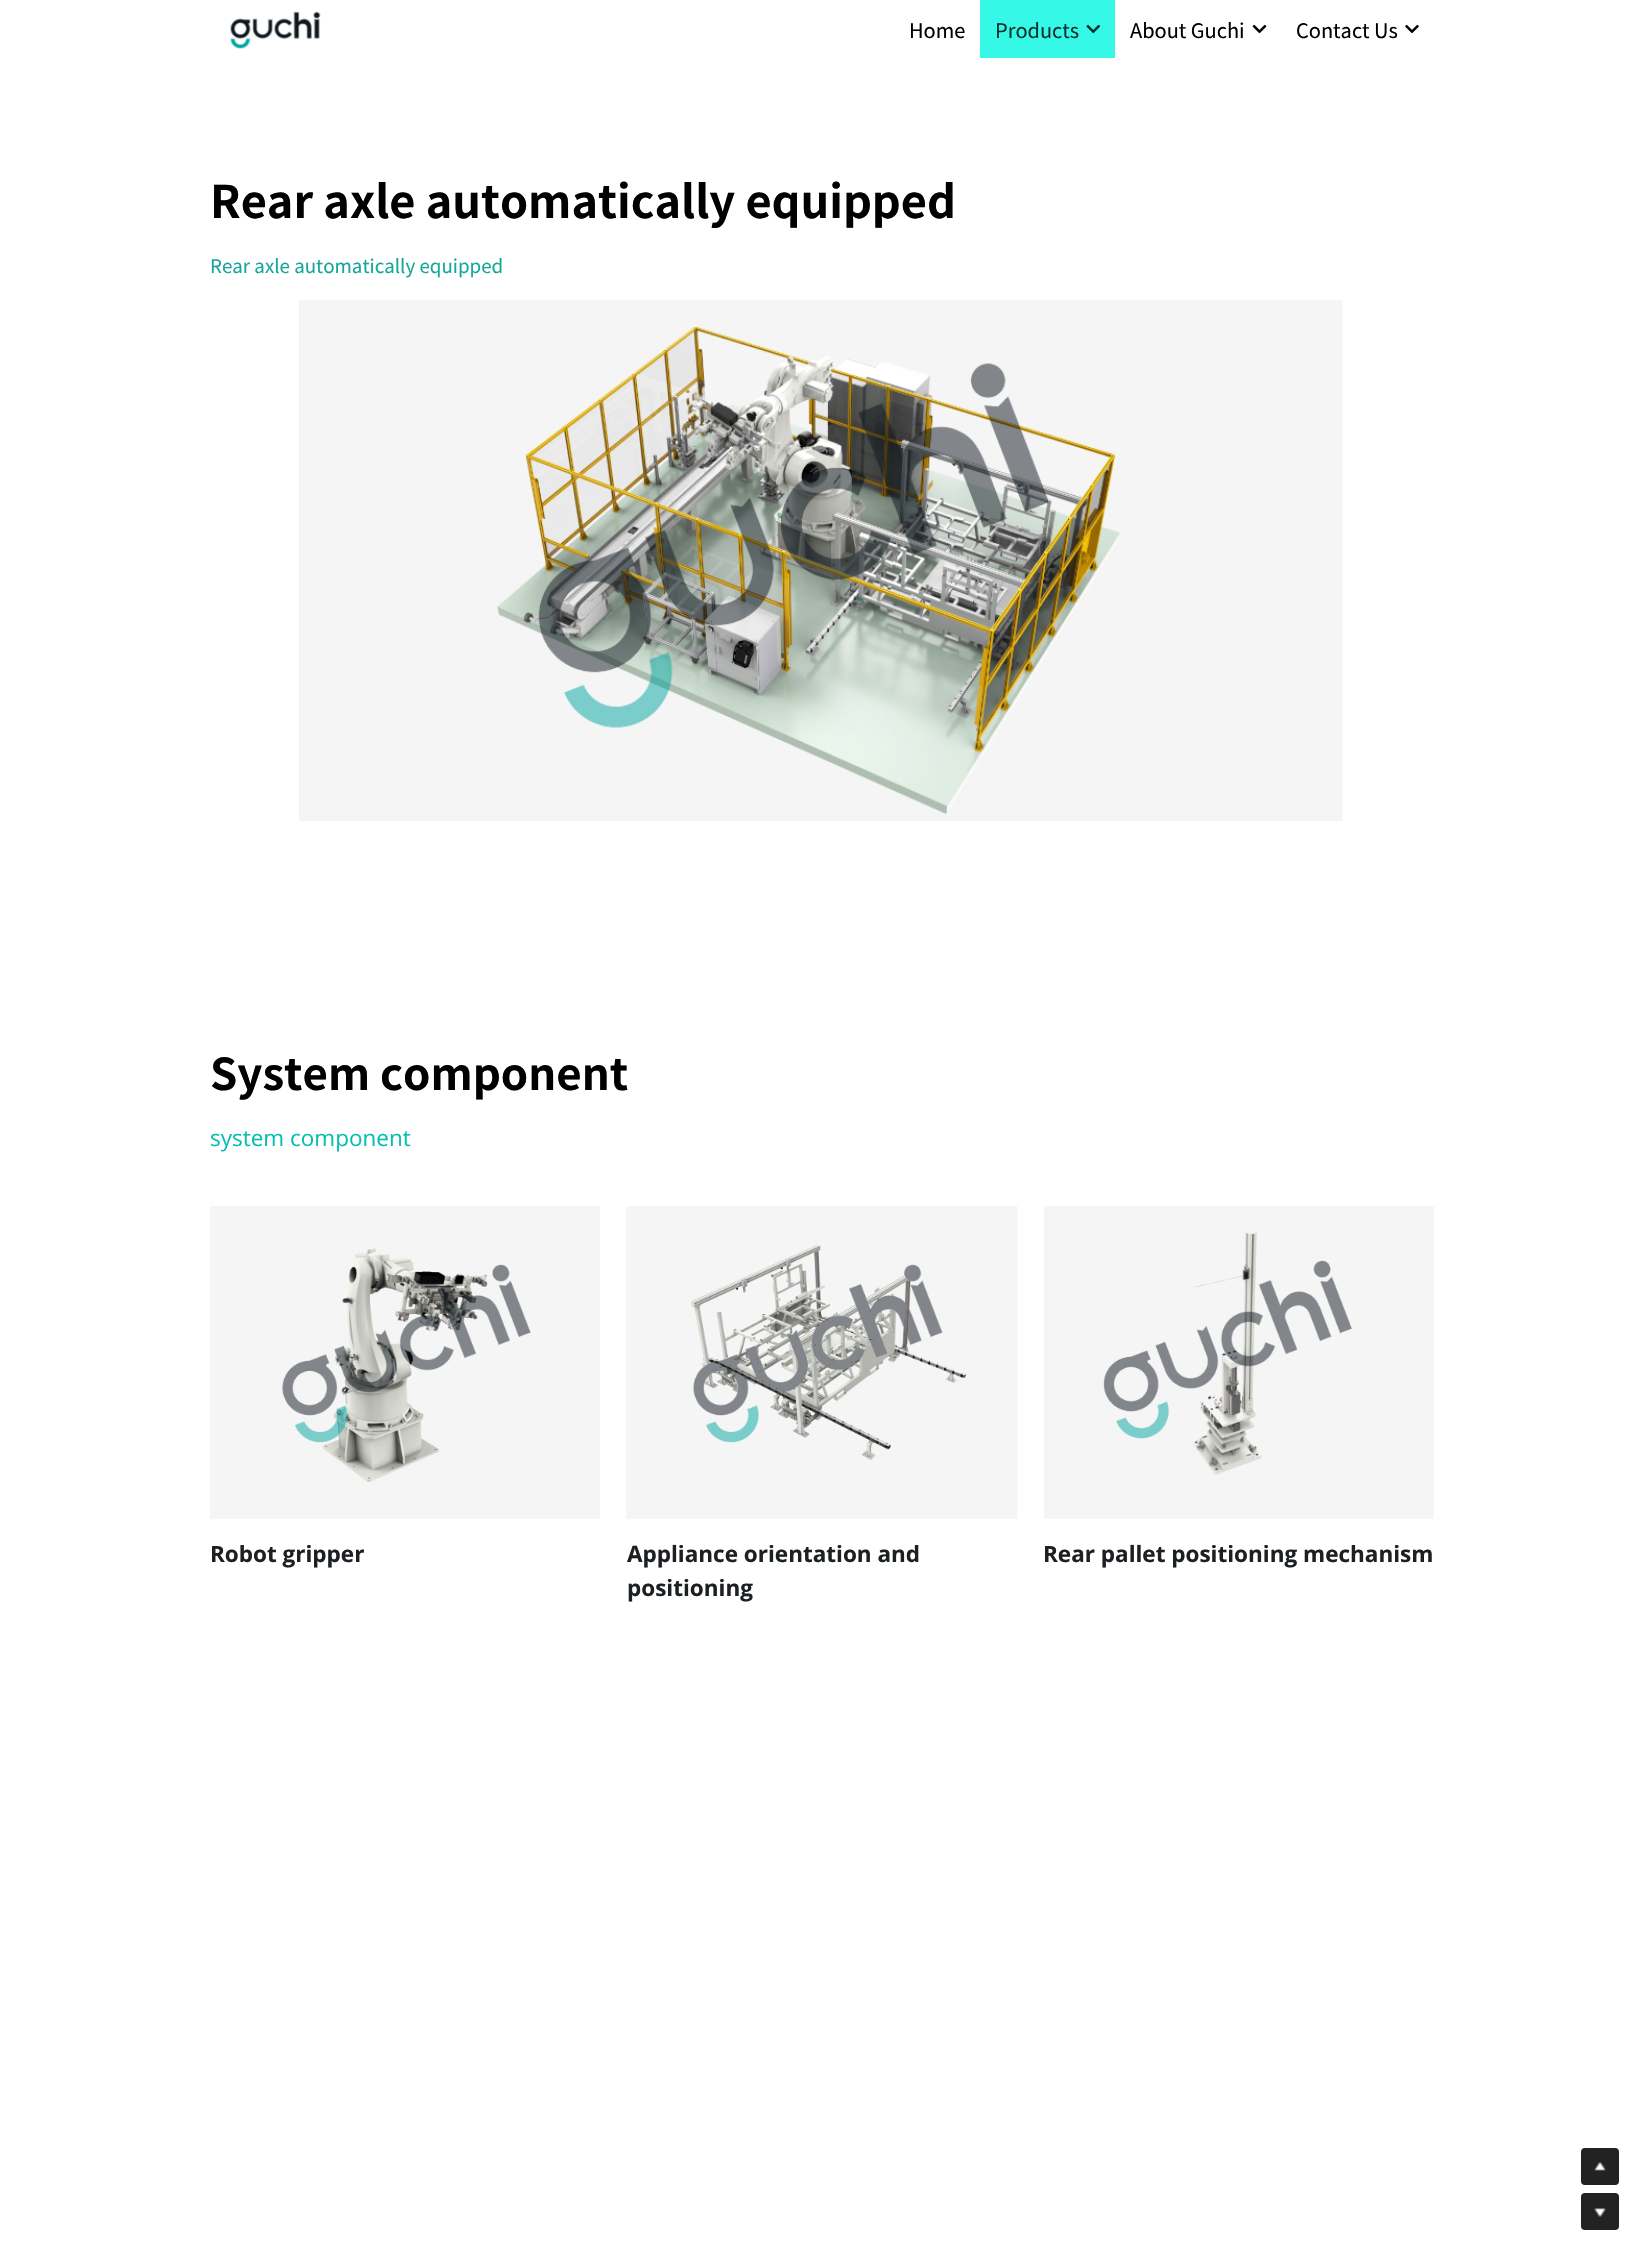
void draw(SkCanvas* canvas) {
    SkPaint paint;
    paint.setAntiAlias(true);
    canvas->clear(0xFFFFFFFF);
    canvas->drawImageRect(SkImages::DeferredFromEncodedData(SkData::MakeFromFileName("img1.png")), SkRect::MakeXYWH(230, 11, 91, 38), SkSamplingOptions());
    SkFont font1(fontMgr->matchFamilyStyle("Noto Sans SC", SkFontStyle::Normal()), 20);
    font1.setSubpixel(true);
    paint.setColor(0xFF000000);
    canvas->drawString("Home", 909, 38, font1, paint);
    paint.setColor(0xFF35F8E7);
    canvas->drawRect(SkRect::MakeXYWH(980, 0, 135, 58), paint);
    paint.setColor(0xFF0B322E);
    canvas->drawString("Products", 995, 38, font1, paint);
    canvas->drawImageRect(SkImages::DeferredFromEncodedData(SkData::MakeFromFileName("img2.png")), SkRect::MakeXYWH(1086, 24, 14, 10), SkSamplingOptions());
    paint.setColor(0xFF000000);
    canvas->drawString("About Guchi", 1130, 38, font1, paint);
    canvas->drawImageRect(SkImages::DeferredFromEncodedData(SkData::MakeFromFileName("img3.png")), SkRect::MakeXYWH(1252, 24, 15, 10), SkSamplingOptions());
    canvas->drawString("Contact Us", 1296, 38, font1, paint);
    canvas->drawImageRect(SkImages::DeferredFromEncodedData(SkData::MakeFromFileName("img4.png")), SkRect::MakeXYWH(1405, 24, 14, 10), SkSamplingOptions());
    SkFont font2(fontMgr->matchFamilyStyle("Noto Sans SC", SkFontStyle::Bold()), 45);
    font2.setSubpixel(true);
    canvas->drawString("Rear axle automatically equipped", 210, 218, font2, paint);
    SkFont font3(fontMgr->matchFamilyStyle("Noto Sans SC", SkFontStyle::Normal()), 18.75f);
    font3.setSubpixel(true);
    paint.setColor(0xFF17A69A);
    canvas->drawString("Rear axle automatically equipped", 210, 273, font3, paint);
    canvas->drawImageRect(SkImages::DeferredFromEncodedData(SkData::MakeFromFileName("img5.png")), SkRect::MakeXYWH(299, 300, 1044, 521), SkSamplingOptions());
    SkFont font4(fontMgr->matchFamilyStyle("Noto Sans SC", SkFontStyle::Bold()), 43.75f);
    font4.setSubpixel(true);
    paint.setColor(0xFF000000);
    canvas->drawString("System component", 210, 1090, font4, paint);
    SkFont font5(fontMgr->matchFamilyStyle("Open Sans", SkFontStyle::Normal()), 22.5f);
    font5.setSubpixel(true);
    paint.setColor(0xFF07BFB1);
    canvas->drawString("system component", 210, 1146, font5, paint);
    canvas->drawImageRect(SkImages::DeferredFromEncodedData(SkData::MakeFromFileName("img6.png")), SkRect::MakeXYWH(210, 1206, 390, 313), SkSamplingOptions());
    SkFont font6(fontMgr->matchFamilyStyle("Open Sans", SkFontStyle::Bold()), 22.5f);
    font6.setSubpixel(true);
    paint.setColor(0xFF1D2023);
    canvas->drawString("Robot gripper", 210, 1562, font6, paint);
    canvas->drawImageRect(SkImages::DeferredFromEncodedData(SkData::MakeFromFileName("img7.png")), SkRect::MakeXYWH(626, 1206, 392, 313), SkSamplingOptions());
    canvas->drawString("Appliance orientation and", 627, 1562, font6, paint);
    canvas->drawString("positioning", 627, 1596, font6, paint);
    canvas->drawImageRect(SkImages::DeferredFromEncodedData(SkData::MakeFromFileName("img8.png")), SkRect::MakeXYWH(1044, 1206, 390, 313), SkSamplingOptions());
    canvas->drawString("Rear pallet positioning mechanism", 1043, 1562, font6, paint);
    paint.setColor(0xFF222222);
    canvas->drawRoundRect(SkRect::MakeXYWH(1581, 2148, 38, 37), 4, 4, paint);
    canvas->drawImageRect(SkImages::DeferredFromEncodedData(SkData::MakeFromFileName("img9.png")), SkRect::MakeXYWH(1594, 2162, 12, 9), SkSamplingOptions());
    canvas->drawRoundRect(SkRect::MakeXYWH(1581, 2193, 38, 37), 4, 4, paint);
    canvas->drawImageRect(SkImages::DeferredFromEncodedData(SkData::MakeFromFileName("img10.png")), SkRect::MakeXYWH(1594, 2208, 12, 9), SkSamplingOptions());
}
